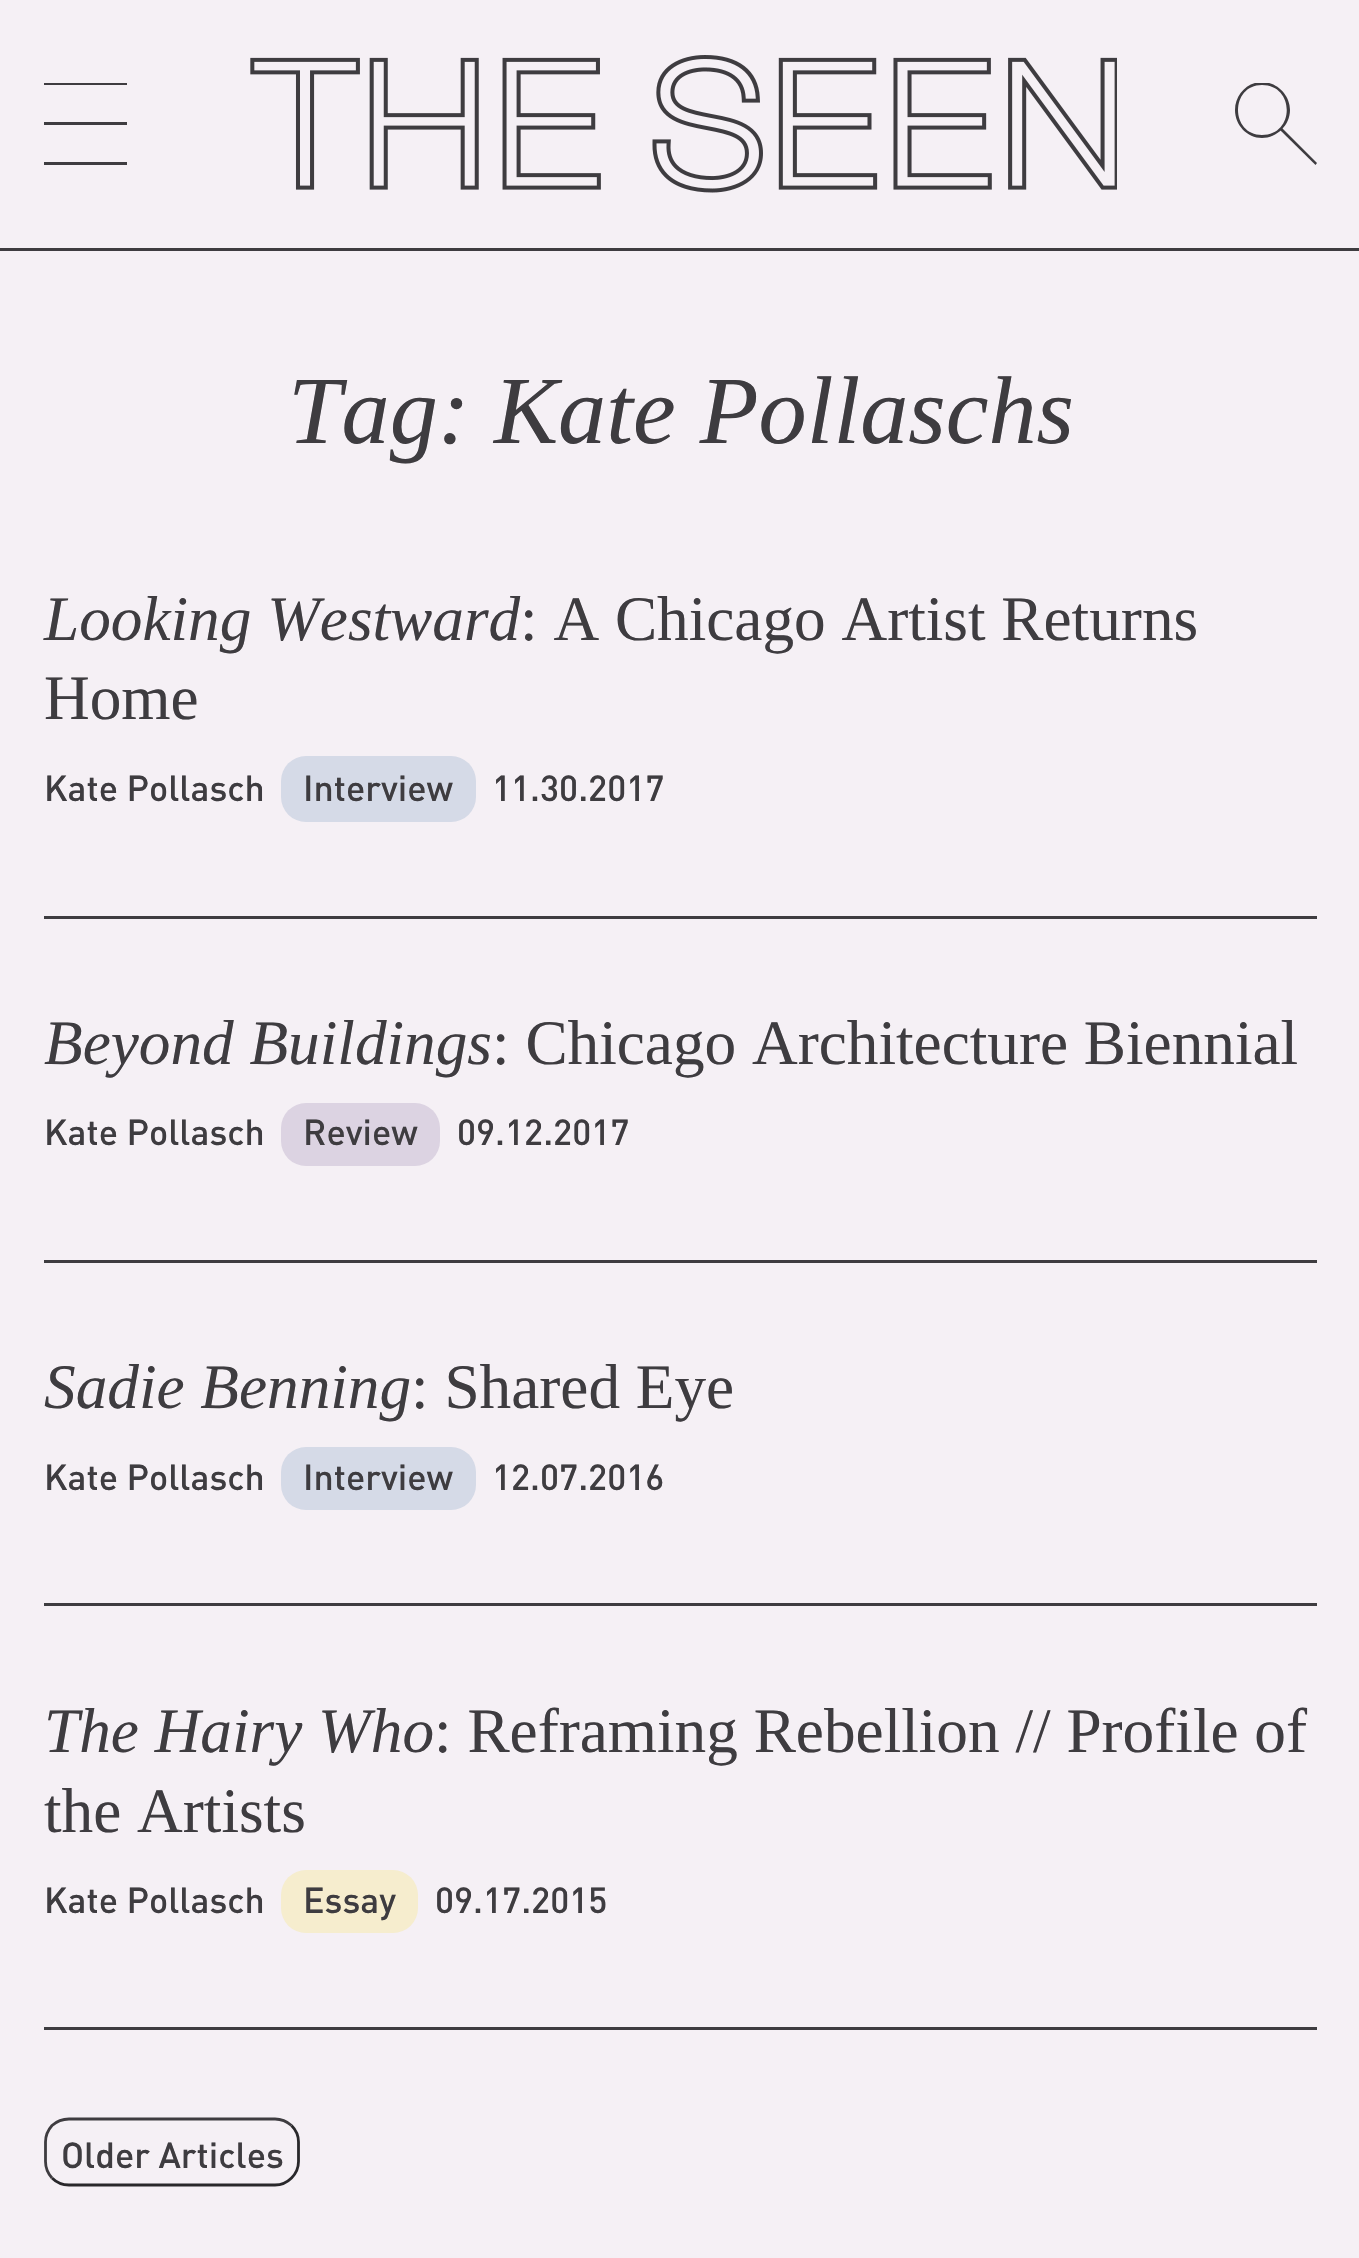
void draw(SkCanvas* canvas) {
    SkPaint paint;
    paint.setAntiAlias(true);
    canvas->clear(0xFFF5F0F5);
    paint.setColor(0xFF3E3C40);
    canvas->drawRect(SkRect::MakeXYWH(0, 248, 1359, 3), paint);
    canvas->drawRect(SkRect::MakeXYWH(44, 83, 83, 2), paint);
    canvas->drawRect(SkRect::MakeXYWH(44, 122, 83, 3), paint);
    canvas->drawRect(SkRect::MakeXYWH(44, 162, 83, 3), paint);
    canvas->drawImageRect(SkImages::DeferredFromEncodedData(SkData::MakeFromFileName("img1.png")), SkRect::MakeXYWH(250, 55, 867, 138), SkSamplingOptions());
    canvas->drawPath(SkPathBuilder().moveTo(1279.5f, 129.5f).lineTo(1281.5f, 127.5f).lineTo(1317, 163).lineTo(1315.5f, 165).close().detach(), paint);
    canvas->save();
    canvas->clipRect(SkRect::MakeXYWH(1235, 83, 82, 82));
    canvas->drawPath(SkPathBuilder().moveTo(1262, 85).cubicTo(1295, 85, 1295, 135, 1262, 135).cubicTo(1230, 135, 1230, 85, 1262, 85).moveTo(1262, 82).cubicTo(1247, 82, 1235, 95, 1235, 110).cubicTo(1235, 125, 1247, 138, 1262, 138).cubicTo(1277, 138, 1290, 125, 1290, 110).cubicTo(1290, 95, 1277, 82, 1262, 82).close().detach(), paint);
    canvas->restore();
    SkFont font1(fontMgr->matchFamilyStyle("Liberation Serif", SkFontStyle::Italic()), 96.25f);
    font1.setSubpixel(true);
    canvas->drawString("Tag: Kate Pollaschs", 288, 443, font1, paint);
    SkFont font2(fontMgr->matchFamilyStyle("Liberation Serif", SkFontStyle::Italic()), 63.25f);
    font2.setSubpixel(true);
    canvas->drawString("Looking Westward", 44, 640, font2, paint);
    SkFont font3(fontMgr->matchFamilyStyle("Liberation Serif", SkFontStyle::Normal()), 63.25f);
    font3.setSubpixel(true);
    canvas->drawString(": A Chicago Artist Returns", 520, 640, font3, paint);
    canvas->drawString("Home", 44, 719, font3, paint);
    SkFont font4(fontMgr->matchFamilyStyle("DIN", SkFontStyle(500, SkFontStyle::kNormal_Width, SkFontStyle::kUpright_Slant)), 35.75f);
    font4.setSubpixel(true);
    canvas->drawString("Kate Pollasch", 44, 801, font4, paint);
    paint.setColor(0xFFD5DAE7);
    canvas->drawRoundRect(SkRect::MakeXYWH(281, 756, 195, 66), 25, 25, paint);
    paint.setColor(0xFF3E3C40);
    canvas->drawString("Interview", 303, 801, font4, paint);
    canvas->drawString("11.30.2017", 492, 801, font4, paint);
    canvas->drawRect(SkRect::MakeXYWH(44, 916, 1273, 3), paint);
    canvas->drawString("Beyond Buildings", 44, 1064, font2, paint);
    canvas->drawString(": Chicago Architecture Biennial", 492, 1064, font3, paint);
    canvas->drawString("Kate Pollasch", 44, 1145, font4, paint);
    paint.setColor(0xFFDCD3E2);
    canvas->drawRoundRect(SkRect::MakeXYWH(281, 1103, 159, 63), 25, 25, paint);
    paint.setColor(0xFF3E3C40);
    canvas->drawString("Review", 303, 1145, font4, paint);
    canvas->drawString("09.12.2017", 457, 1145, font4, paint);
    canvas->drawRect(SkRect::MakeXYWH(44, 1260, 1273, 3), paint);
    canvas->drawString("Sadie Benning", 44, 1408, font2, paint);
    canvas->drawString(": Shared Eye", 411, 1408, font3, paint);
    canvas->drawString("Kate Pollasch", 44, 1490, font4, paint);
    paint.setColor(0xFFD5DAE7);
    canvas->drawRoundRect(SkRect::MakeXYWH(281, 1447, 195, 63), 25, 25, paint);
    paint.setColor(0xFF3E3C40);
    canvas->drawString("Interview", 303, 1490, font4, paint);
    canvas->drawString("12.07.2016", 492, 1490, font4, paint);
    canvas->drawRect(SkRect::MakeXYWH(44, 1603, 1273, 3), paint);
    canvas->drawString("The Hairy Who", 44, 1752, font2, paint);
    canvas->drawString(": Reframing Rebellion // Profile of", 434, 1752, font3, paint);
    canvas->drawString("the Artists", 44, 1832, font3, paint);
    canvas->drawString("Kate Pollasch", 44, 1913, font4, paint);
    paint.setColor(0xFFF6EDCE);
    canvas->drawRoundRect(SkRect::MakeXYWH(281, 1870, 137, 63), 25, 25, paint);
    paint.setColor(0xFF3E3C40);
    canvas->drawString("Essay", 303, 1913, font4, paint);
    canvas->drawString("09.17.2015", 435, 1913, font4, paint);
    canvas->drawRect(SkRect::MakeXYWH(44, 2027, 1273, 3), paint);
    paint.setStyle(SkPaint::kStroke_Style);
    paint.setStrokeWidth(2.8f);
    paint.setColor(0xFF29282B);
    canvas->drawPath(SkPathBuilder().moveTo(291.5f, 2125.5f).cubicTo(296, 2130, 298.5f, 2136, 298.5f, 2142).lineTo(298.5f, 2161.5f).cubicTo(298.5f, 2167.5f, 296, 2173.5f, 291.5f, 2178).cubicTo(287, 2182.5f, 281, 2185, 275, 2185).lineTo(69, 2185).cubicTo(62.5f, 2185, 56.5f, 2182.5f, 52, 2178).detach(), paint);
    paint.setColor(0xFF3E3C40);
    canvas->drawPath(SkPathBuilder().moveTo(52, 2178).cubicTo(48, 2173.5f, 45.5f, 2167.5f, 45.5f, 2161.5f).lineTo(45.5f, 2142).cubicTo(45.5f, 2136, 48, 2130, 52, 2125.5f).cubicTo(56.5f, 2121.5f, 62.5f, 2119, 69, 2119).lineTo(275, 2119).cubicTo(281, 2119, 287, 2121.5f, 291.5f, 2125.5f).detach(), paint);
    paint.setStyle(SkPaint::kFill_Style);
    canvas->drawString("Older Articles", 61, 2168, font4, paint);
}
